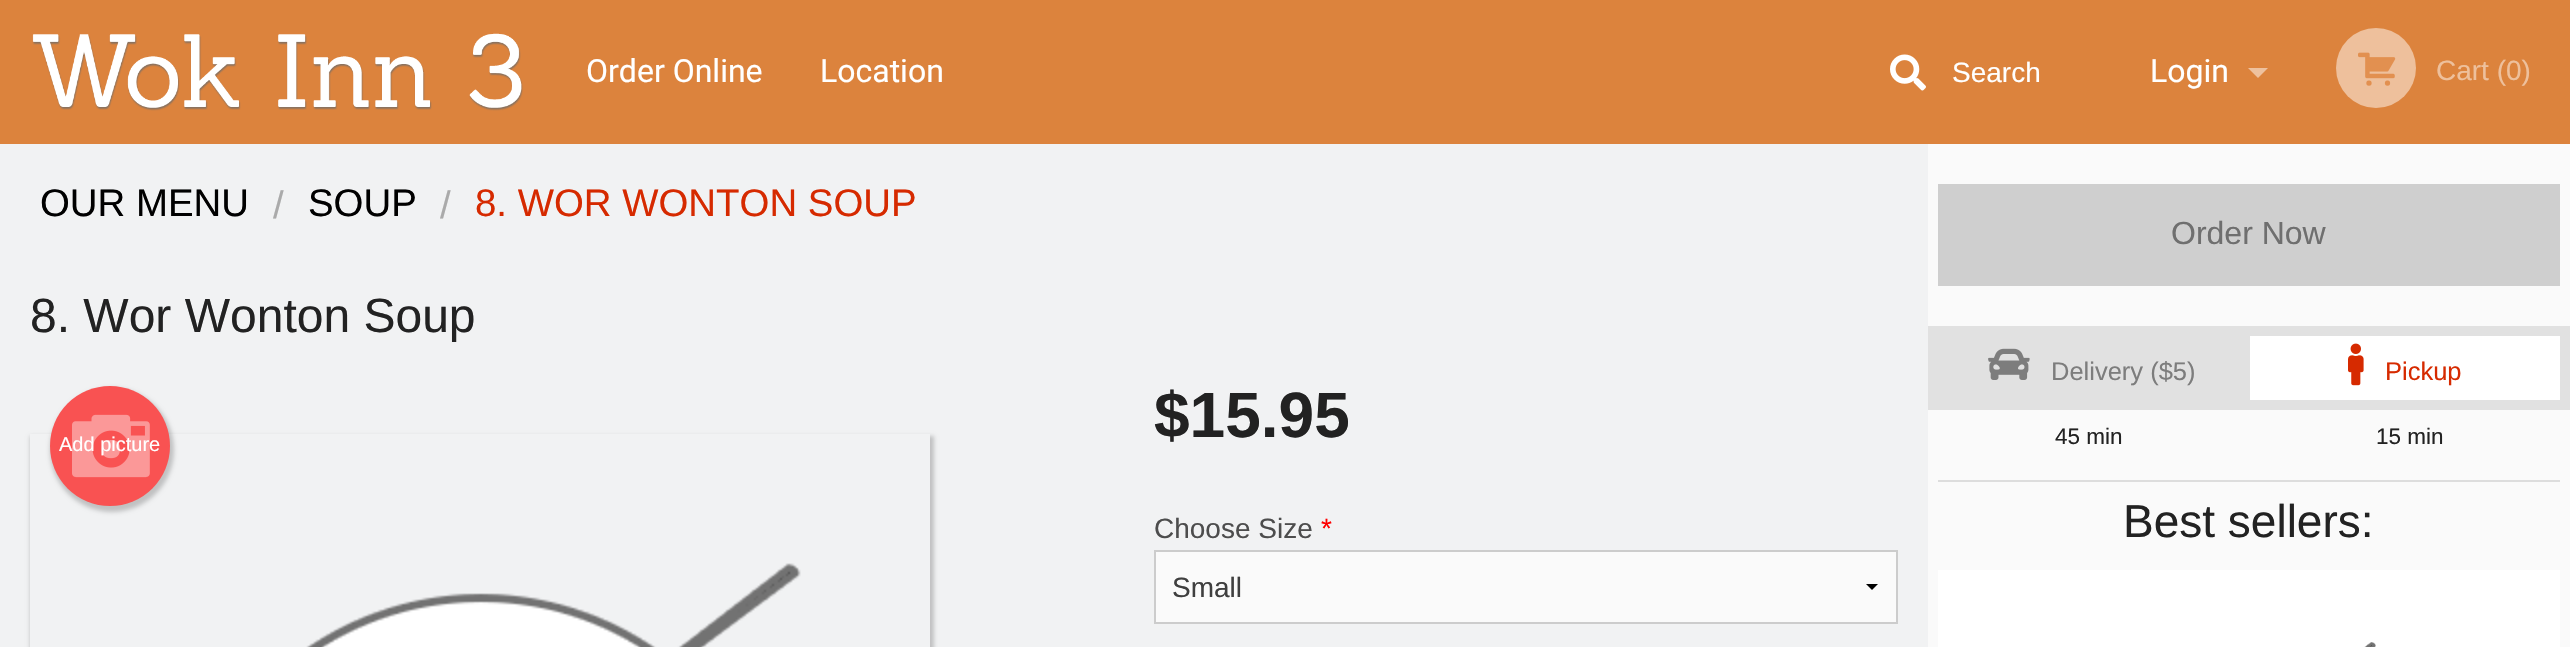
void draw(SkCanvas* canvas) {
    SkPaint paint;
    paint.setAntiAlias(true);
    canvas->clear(0xFFF1F2F3);
    paint.setColor(0xFFDC833D);
    canvas->drawRect(SkRect::MakeXYWH(0, 0, 2570, 144), paint);
    canvas->drawImageRect(SkImages::DeferredFromEncodedData(SkData::MakeFromFileName("img1.png")), SkRect::MakeXYWH(32, 33, 491, 78), SkSamplingOptions());
    SkFont font1(fontMgr->matchFamilyStyle("Roboto", SkFontStyle::Normal()), 32);
    font1.setSubpixel(true);
    paint.setColor(0xFFFFFFFF);
    canvas->drawString("Order Online", 586, 82, font1, paint);
    canvas->drawString("Location", 820, 82, font1, paint);
    canvas->drawImageRect(SkImages::DeferredFromEncodedData(SkData::MakeFromFileName("img2.png")), SkRect::MakeXYWH(1890, 54, 36, 37), SkSamplingOptions());
    SkFont font2(fontMgr->matchFamilyStyle("Liberation Sans", SkFontStyle::Normal()), 28);
    font2.setSubpixel(true);
    canvas->drawString("Search", 1952, 82, font2, paint);
    canvas->drawString("Login", 2150, 82, font1, paint);
    paint.setColor(0xFFEEC19E);
    canvas->drawPath(SkPathBuilder().moveTo(2248, 68).lineTo(2268, 68).lineTo(2258, 78).close().detach(), paint);
    paint.setColor(0xFFEEC09C);
    canvas->drawCircle(2376, 68, 40, paint);
    canvas->drawImageRect(SkImages::DeferredFromEncodedData(SkData::MakeFromFileName("img3.png")), SkRect::MakeXYWH(2358, 52, 38, 34), SkSamplingOptions());
    canvas->drawString("Cart (0)", 2436, 80, font2, paint);
    SkFont font3(fontMgr->matchFamilyStyle("Liberation Sans", SkFontStyle::Normal()), 38.4f);
    font3.setSubpixel(true);
    paint.setColor(0xFF000000);
    canvas->drawString("OUR MENU", 40, 216, font3, paint);
    paint.setColor(0xFFAAAAAA);
    canvas->drawString("/", 273, 218, font3, paint);
    paint.setColor(0xFF000000);
    canvas->drawString("SOUP", 308, 216, font3, paint);
    paint.setColor(0xFFAAAAAA);
    canvas->drawString("/", 440, 218, font3, paint);
    paint.setColor(0xFFD62A00);
    canvas->drawString("8. WOR WONTON SOUP", 475, 216, font3, paint);
    SkFont font4(fontMgr->matchFamilyStyle("Liberation Sans", SkFontStyle::Normal()), 48);
    font4.setSubpixel(true);
    paint.setColor(0xFF222222);
    canvas->drawString("8. Wor Wonton Soup", 30, 332, font4, paint);
    canvas->save();
    canvas->clipPath(SkPathBuilder(SkPathFillType::kEvenOdd).moveTo(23, 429).lineTo(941, 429).lineTo(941, 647).lineTo(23, 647).close().moveTo(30, 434).lineTo(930, 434).lineTo(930, 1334).lineTo(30, 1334).close().detach(), true);
    paint.setColor(0x33000000);
    paint.setMaskFilter(SkMaskFilter::MakeBlur(kNormal_SkBlurStyle, 2));
    canvas->drawRect(SkRect::MakeXYWH(30, 436, 904, 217), paint);
    paint.setMaskFilter(nullptr);
    canvas->restore();
    canvas->drawImageRect(SkImages::DeferredFromEncodedData(SkData::MakeFromFileName("img4.png")), SkRect::MakeXYWH(306, 563, 495, 84), SkSamplingOptions());
    paint.setMaskFilter(SkMaskFilter::MakeBlur(kNormal_SkBlurStyle, 2));
    canvas->drawRoundRect(SkRect::MakeXYWH(50, 388, 124, 124), 62, 62, paint);
    paint.setMaskFilter(nullptr);
    paint.setColor(0xFFF95252);
    canvas->drawCircle(110, 446, 60, paint);
    canvas->drawImageRect(SkImages::DeferredFromEncodedData(SkData::MakeFromFileName("img5.png")), SkRect::MakeXYWH(72, 414, 78, 64), SkSamplingOptions());
    SkFont font5(fontMgr->matchFamilyStyle("Liberation Sans", SkFontStyle::Normal()), 20);
    font5.setSubpixel(true);
    paint.setColor(0xFFFFFFFF);
    canvas->drawString("Add picture", 59, 451, font5, paint);
    SkFont font6(fontMgr->matchFamilyStyle("Liberation Sans", SkFontStyle::Bold()), 64);
    font6.setSubpixel(true);
    paint.setColor(0xFF222222);
    canvas->drawString("$15.95", 1154, 437, font6, paint);
    paint.setColor(0xFF4D4D4D);
    canvas->drawString("Choose Size", 1154, 538, font2, paint);
    paint.setColor(0xFFFF0000);
    canvas->drawString("*", 1321, 538, font2, paint);
    paint.setColor(0xFFFAFAFA);
    canvas->drawRect(SkRect::MakeXYWH(1156, 552, 740, 70), paint);
    paint.setColor(0xFF000000);
    canvas->drawPath(SkPathBuilder().moveTo(1878, 584).lineTo(1872, 590).lineTo(1866, 584).close().detach(), paint);
    paint.setStyle(SkPaint::kStroke_Style);
    paint.setStrokeWidth(2);
    paint.setColor(0xFFCCCCCC);
    canvas->drawRect(SkRect::MakeXYWH(1155, 551, 742, 72), paint);
    paint.setStyle(SkPaint::kFill_Style);
    paint.setColor(0xFF3F3F3F);
    canvas->drawString("Small", 1172, 597, font2, paint);
    paint.setColor(0xFFFAFAFA);
    canvas->drawRect(SkRect::MakeXYWH(1928, 144, 642, 503), paint);
    paint.setColor(0xFFCFCFCF);
    canvas->drawRect(SkRect::MakeXYWH(1938, 184, 622, 102), paint);
    SkFont font7(fontMgr->matchFamilyStyle("Liberation Sans", SkFontStyle::Normal()), 32);
    font7.setSubpixel(true);
    paint.setColor(0xFF6F6F6F);
    canvas->drawString("Order Now", 2171, 244, font7, paint);
    paint.setColor(0xFFE1E1E1);
    canvas->drawRect(SkRect::MakeXYWH(1928, 326, 642, 84), paint);
    canvas->drawImageRect(SkImages::DeferredFromEncodedData(SkData::MakeFromFileName("img6.png")), SkRect::MakeXYWH(1988, 348, 42, 32), SkSamplingOptions());
    SkFont font8(fontMgr->matchFamilyStyle("Liberation Sans", SkFontStyle::Normal()), 25.5f);
    font8.setSubpixel(true);
    paint.setColor(0xFF7D7D7D);
    canvas->drawString("Delivery ($5)", 2051, 380, font8, paint);
    paint.setColor(0xFFFFFFFF);
    canvas->drawRect(SkRect::MakeXYWH(2250, 336, 310, 64), paint);
    canvas->drawImageRect(SkImages::DeferredFromEncodedData(SkData::MakeFromFileName("img7.png")), SkRect::MakeXYWH(2348, 343, 16, 43), SkSamplingOptions());
    paint.setColor(0xFFD62A00);
    canvas->drawString("Pickup", 2385, 380, font8, paint);
    SkFont font9(fontMgr->matchFamilyStyle("Liberation Sans", SkFontStyle::Normal()), 22.5f);
    font9.setSubpixel(true);
    paint.setColor(0xFF222222);
    canvas->drawString("45 min", 2055, 444, font9, paint);
    canvas->drawString("15 min", 2376, 444, font9, paint);
    paint.setColor(0xFFDDDDDD);
    canvas->drawRect(SkRect::MakeXYWH(1938, 480, 622, 2), paint);
    SkFont font10(fontMgr->matchFamilyStyle("Liberation Sans", SkFontStyle::Normal()), 46);
    font10.setSubpixel(true);
    paint.setColor(0xFF222222);
    canvas->drawString("Best sellers:", 2123, 537, font10, paint);
    paint.setColor(0xFFFFFFFF);
    canvas->drawRect(SkRect::MakeXYWH(1938, 570, 622, 77), paint);
    canvas->drawImageRect(SkImages::DeferredFromEncodedData(SkData::MakeFromFileName("img8.png")), SkRect::MakeXYWH(2364, 642, 12, 5), SkSamplingOptions());
}
